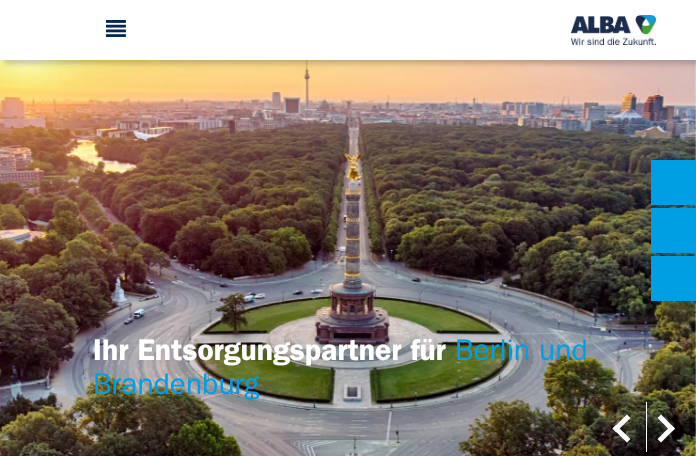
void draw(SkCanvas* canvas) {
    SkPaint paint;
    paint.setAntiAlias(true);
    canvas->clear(0xFFFFFFFF);
    canvas->drawImageRect(SkImages::DeferredFromEncodedData(SkData::MakeFromFileName("img3.png")), SkRect::MakeXYWH(0, 60, 696, 396), SkSamplingOptions());
    paint.setColor(0x33000000);
    paint.setMaskFilter(SkMaskFilter::MakeBlur(kNormal_SkBlurStyle, 2.5f));
    canvas->drawRect(SkRect::MakeXYWH(4, 4, 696, 60), paint);
    paint.setMaskFilter(nullptr);
    paint.setColor(0xFFFFFFFF);
    canvas->drawRect(SkRect::MakeXYWH(0, 0, 696, 60), paint);
    canvas->drawImageRect(SkImages::DeferredFromEncodedData(SkData::MakeFromFileName("img1.png")), SkRect::MakeXYWH(106, 20, 20, 17), SkSamplingOptions());
    canvas->drawImageRect(SkImages::DeferredFromEncodedData(SkData::MakeFromFileName("img2.png")), SkRect::MakeXYWH(571, 15, 85, 30), SkSamplingOptions());
    paint.setColor(0x2B323232);
    paint.setMaskFilter(SkMaskFilter::MakeBlur(kNormal_SkBlurStyle, 2.5f));
    canvas->drawRect(SkRect::MakeXYWH(656, 165, 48, 45), paint);
    paint.setMaskFilter(nullptr);
    paint.setColor(0xFF009FE3);
    canvas->drawRect(SkRect::MakeXYWH(651, 160, 45, 45), paint);
    paint.setColor(0x2B323232);
    paint.setMaskFilter(SkMaskFilter::MakeBlur(kNormal_SkBlurStyle, 2.5f));
    canvas->drawRect(SkRect::MakeXYWH(656, 213, 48, 45), paint);
    paint.setMaskFilter(nullptr);
    paint.setColor(0xFF009FE3);
    canvas->drawRect(SkRect::MakeXYWH(651, 208, 45, 45), paint);
    paint.setColor(0x2B323232);
    paint.setMaskFilter(SkMaskFilter::MakeBlur(kNormal_SkBlurStyle, 2.5f));
    canvas->drawRect(SkRect::MakeXYWH(656, 261, 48, 45), paint);
    paint.setMaskFilter(nullptr);
    paint.setColor(0xFF009FE3);
    canvas->drawRect(SkRect::MakeXYWH(651, 256, 45, 45), paint);
    SkFont font1(fontMgr->matchFamilyStyle("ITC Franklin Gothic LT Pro", SkFontStyle(600, SkFontStyle::kNormal_Width, SkFontStyle::kUpright_Slant)), 30);
    font1.setSubpixel(true);
    paint.setColor(0xFFFFFFFF);
    canvas->drawString("Ihr Entsorgungspartner für", 93, 360, font1, paint);
    SkFont font2(fontMgr->matchFamilyStyle("ITC Franklin Gothic LT Pro", SkFontStyle::Normal()), 30);
    font2.setSubpixel(true);
    paint.setColor(0xFF009FE3);
    canvas->drawString("Berlin und", 455, 360, font2, paint);
    canvas->drawString("Brandenburg", 93, 394, font2, paint);
    paint.setColor(0xFFFFFFFF);
    canvas->drawPath(SkPathBuilder().moveTo(612.5f, 428.5f).lineTo(627, 414.5f).lineTo(630.5f, 418).lineTo(616, 432).close().detach(), paint);
    canvas->drawPath(SkPathBuilder().moveTo(612.5f, 428.5f).lineTo(616, 425).lineTo(630.5f, 439).lineTo(627, 442.5f).close().detach(), paint);
    canvas->drawRect(SkRect::MakeXYWH(646, 402, 1, 50), paint);
    canvas->drawPath(SkPathBuilder().moveTo(661, 414.5f).lineTo(675, 428.5f).lineTo(671.5f, 432).lineTo(657.5f, 418).close().detach(), paint);
    canvas->drawPath(SkPathBuilder().moveTo(671.5f, 425).lineTo(675, 428.5f).lineTo(661, 442.5f).lineTo(657.5f, 439).close().detach(), paint);
}
